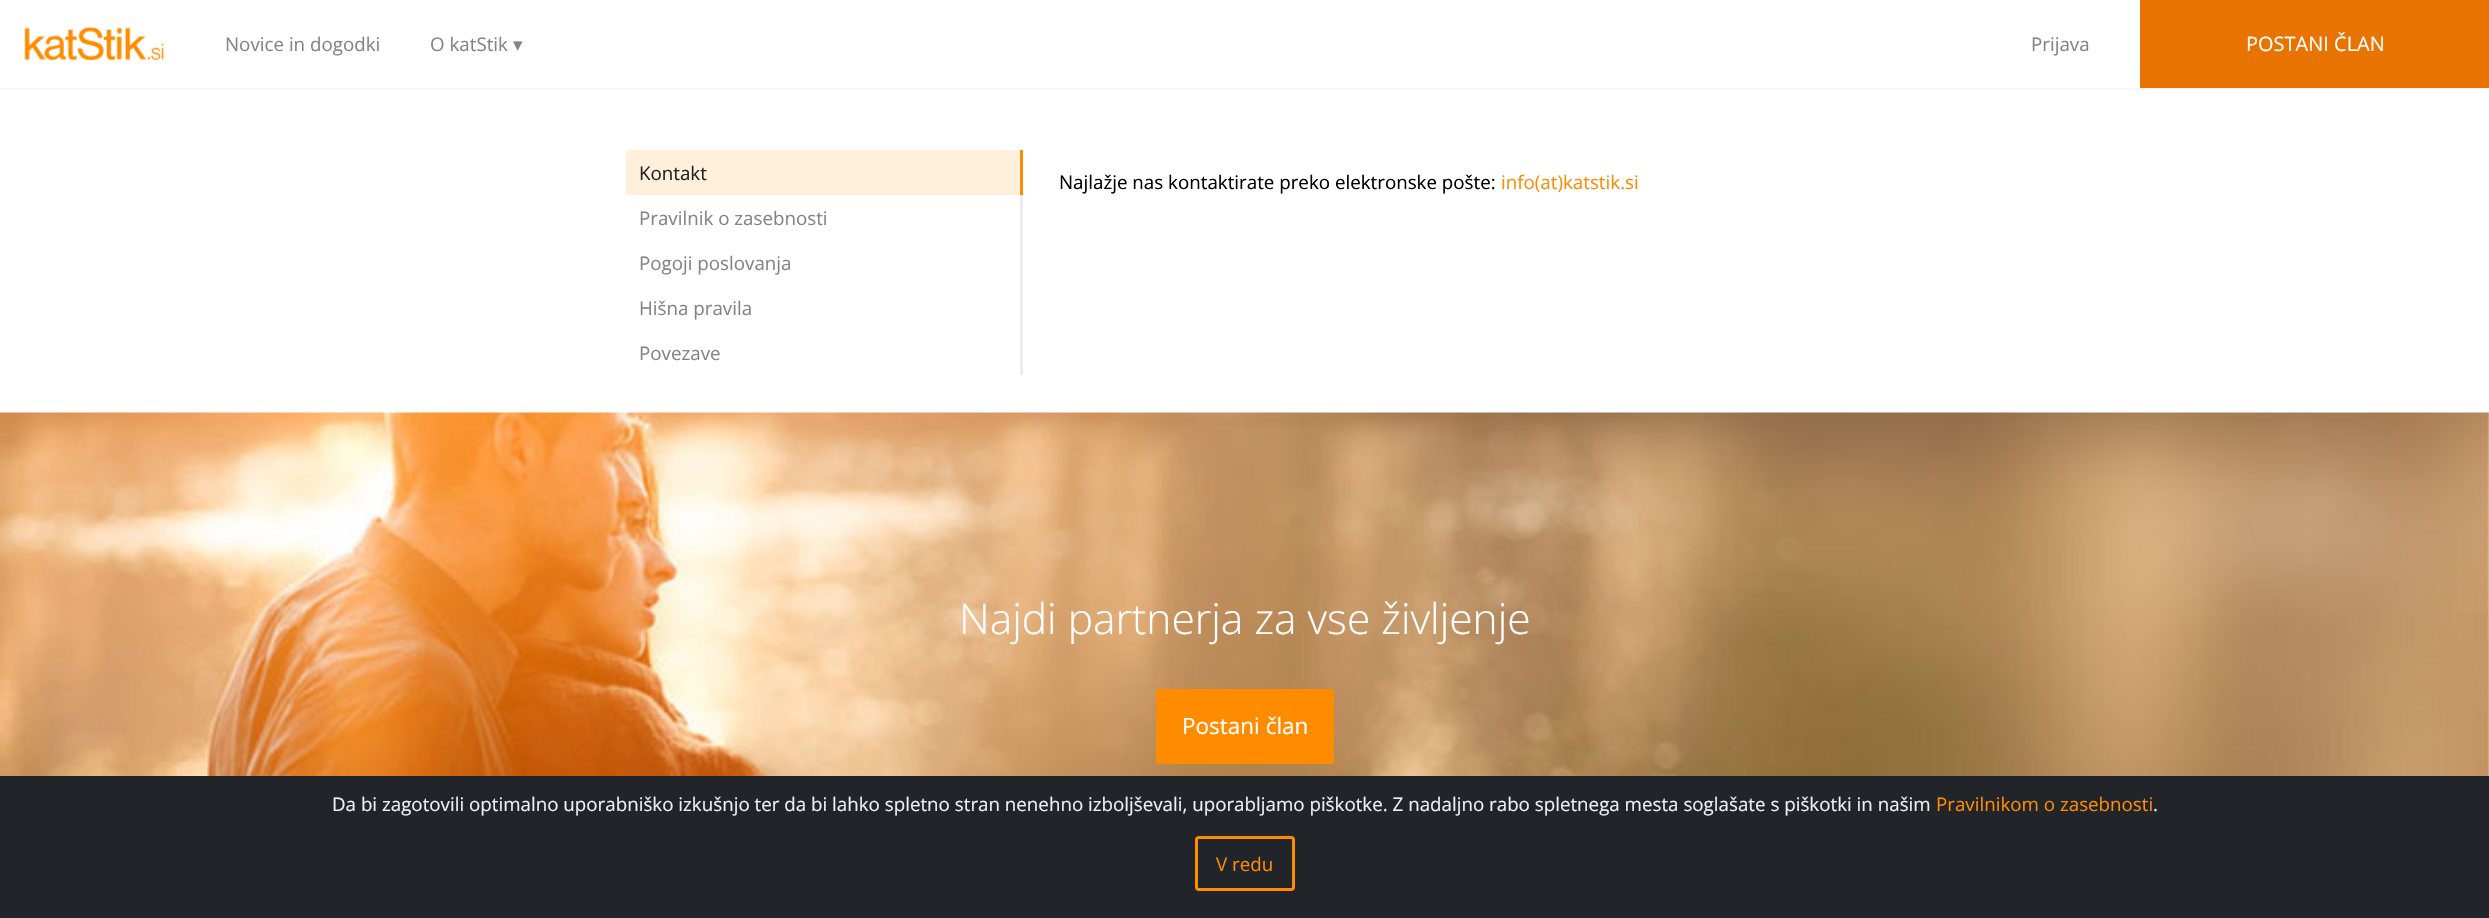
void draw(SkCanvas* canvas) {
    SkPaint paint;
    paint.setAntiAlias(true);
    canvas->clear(0xFFFFFFFF);
    paint.setColor(0x0D000000);
    paint.setMaskFilter(SkMaskFilter::MakeBlur(kNormal_SkBlurStyle, 1));
    canvas->drawRect(SkRect::MakeXYWH(0, 1, 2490, 88), paint);
    paint.setMaskFilter(nullptr);
    paint.setColor(0xFFFFFFFF);
    canvas->drawRect(SkRect::MakeXYWH(0, 0, 2140, 88), paint);
    canvas->drawImageRect(SkImages::DeferredFromEncodedData(SkData::MakeFromFileName("img1.png")), SkRect::MakeXYWH(24, 26, 140, 35), SkSamplingOptions());
    SkFont font1(fontMgr->matchFamilyStyle("Open Sans", SkFontStyle::Normal()), 18.75f);
    font1.setSubpixel(true);
    paint.setColor(0xFF848484);
    canvas->drawString("Novice in dogodki", 225, 51, font1, paint);
    canvas->drawString("O katStik", 430, 51, font1, paint);
    SkFont font2(fontMgr->matchFamilyStyle("DejaVu Sans", SkFontStyle::Normal()), 18.75f);
    font2.setSubpixel(true);
    canvas->drawString("▾", 513, 51, font2, paint);
    canvas->drawString("Prijava", 2031, 51, font1, paint);
    paint.setColor(0xFFE97300);
    canvas->drawRect(SkRect::MakeXYWH(2140, 0, 349, 88), paint);
    SkFont font3(fontMgr->matchFamilyStyle("Open Sans", SkFontStyle::Normal()), 20);
    font3.setSubpixel(true);
    paint.setColor(0xFFFFFFFF);
    canvas->drawString("POSTANI ČLAN", 2246, 51, font3, paint);
    paint.setColor(0xFFFFEFDB);
    canvas->drawRect(SkRect::MakeXYWH(626, 150, 394, 45), paint);
    paint.setColor(0xFFFF8C00);
    canvas->drawRect(SkRect::MakeXYWH(1020, 150, 3, 45), paint);
    paint.setColor(0xFF222222);
    canvas->drawString("Kontakt", 639, 180, font1, paint);
    paint.setColor(0xFFEDEDED);
    canvas->drawRect(SkRect::MakeXYWH(1020, 195, 3, 180), paint);
    paint.setColor(0xFF848484);
    canvas->drawString("Pravilnik o zasebnosti", 639, 225, font1, paint);
    canvas->drawString("Pogoji poslovanja", 639, 270, font1, paint);
    canvas->drawString("Hišna pravila", 639, 315, font1, paint);
    canvas->drawString("Povezave", 639, 360, font1, paint);
    paint.setColor(0xFF000000);
    canvas->drawString("Najlažje nas kontaktirate preko elektronske pošte:", 1059, 189, font1, paint);
    paint.setColor(0xFFFF8C00);
    canvas->drawString("info(at)katstik.si", 1501, 189, font1, paint);
    canvas->drawImageRect(SkImages::DeferredFromEncodedData(SkData::MakeFromFileName("img2.png")), SkRect::MakeXYWH(0, 412, 2489, 364), SkSamplingOptions());
    SkFont font4(fontMgr->matchFamilyStyle("Open Sans", SkFontStyle(300, SkFontStyle::kNormal_Width, SkFontStyle::kUpright_Slant)), 42.5f);
    font4.setSubpixel(true);
    paint.setColor(0xFFFFFFFF);
    canvas->drawString("Najdi partnerja za vse življenje", 959, 634, font4, paint);
    paint.setColor(0xFFFF8C00);
    canvas->drawRoundRect(SkRect::MakeXYWH(1156, 689, 178, 75), 2.5f, 2.5f, paint);
    SkFont font5(fontMgr->matchFamilyStyle("Open Sans", SkFontStyle::Normal()), 22.5f);
    font5.setSubpixel(true);
    paint.setColor(0xFFFFFFFF);
    canvas->drawString("Postani član", 1182, 734, font5, paint);
    paint.setColor(0xFF212529);
    canvas->drawRect(SkRect::MakeXYWH(0, 776, 2489, 142), paint);
    paint.setColor(0xFFECF0F1);
    canvas->drawString("Da bi zagotovili optimalno uporabniško izkušnjo ter da bi lahko spletno stran nenehno izboljševali, uporabljamo piškotke. Z nadaljno rabo spletnega mesta soglašate s piškotki in našim", 332, 811, font1, paint);
    paint.setColor(0xFFFF8C00);
    canvas->drawString("Pravilnikom o zasebnosti", 1936, 811, font1, paint);
    paint.setColor(0xFFECF0F1);
    canvas->drawString(".", 2153, 811, font1, paint);
    paint.setStyle(SkPaint::kStroke_Style);
    paint.setStrokeWidth(3);
    paint.setColor(0xFFFF8C00);
    canvas->drawRoundRect(SkRect::MakeXYWH(1196.5f, 837.5f, 97, 52), 2.5f, 2.5f, paint);
    paint.setStyle(SkPaint::kFill_Style);
    canvas->drawString("V redu", 1216, 871, font1, paint);
}
